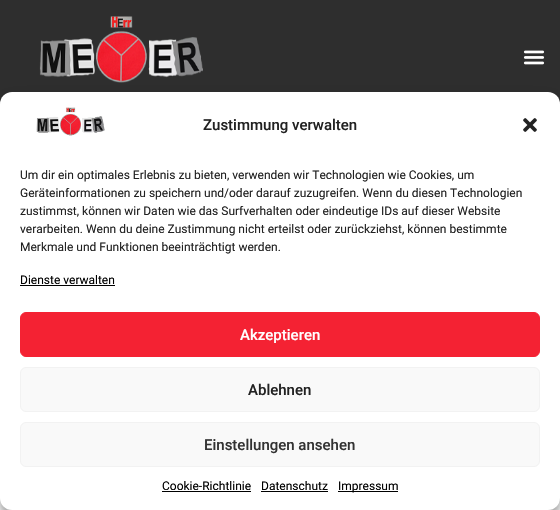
void draw(SkCanvas* canvas) {
    SkPaint paint;
    paint.setAntiAlias(true);
    canvas->clear(0xFFFFFFFF);
    paint.setColor(0xFF2E2E2E);
    canvas->drawRect(SkRect::MakeXYWH(0, 0, 560, 104), paint);
    canvas->drawImageRect(SkImages::DeferredFromEncodedData(SkData::MakeFromFileName("img1.png")), SkRect::MakeXYWH(39, 16, 164, 67), SkSamplingOptions());
    canvas->drawImageRect(SkImages::DeferredFromEncodedData(SkData::MakeFromFileName("img2.png")), SkRect::MakeXYWH(523, 50, 22, 15), SkSamplingOptions());
    paint.setColor(0x3B000000);
    paint.setMaskFilter(SkMaskFilter::MakeBlur(kNormal_SkBlurStyle, 3));
    canvas->drawRoundRect(SkRect::MakeXYWH(0, 98, 560, 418), 12, 12, paint);
    paint.setMaskFilter(nullptr);
    paint.setColor(0x30000000);
    paint.setMaskFilter(SkMaskFilter::MakeBlur(kNormal_SkBlurStyle, 10));
    canvas->drawRoundRect(SkRect::MakeXYWH(0, 102, 560, 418), 12, 12, paint);
    paint.setMaskFilter(nullptr);
    paint.setColor(0xFF808080);
    paint.setMaskFilter(SkMaskFilter::MakeBlur(kNormal_SkBlurStyle, 2.5f));
    canvas->drawRoundRect(SkRect::MakeXYWH(490, 436, 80, 60), 2, 2, paint);
    paint.setMaskFilter(nullptr);
    paint.setColor(0xFFFFFFFF);
    canvas->drawRoundRect(SkRect::MakeXYWH(0, 92, 560, 418), 12, 12, paint);
    canvas->drawImageRect(SkImages::DeferredFromEncodedData(SkData::MakeFromFileName("img3.png")), SkRect::MakeXYWH(36, 107, 69, 29), SkSamplingOptions());
    SkFont font1(fontMgr->matchFamilyStyle("Roboto", SkFontStyle(500, SkFontStyle::kNormal_Width, SkFontStyle::kUpright_Slant)), 15);
    font1.setSubpixel(true);
    paint.setColor(0xFF222222);
    canvas->drawString("Zustimmung verwalten", 203, 130, font1, paint);
    canvas->drawImageRect(SkImages::DeferredFromEncodedData(SkData::MakeFromFileName("img4.png")), SkRect::MakeXYWH(523, 118, 14, 14), SkSamplingOptions());
    SkFont font2(fontMgr->matchFamilyStyle("Roboto", SkFontStyle::Normal()), 12);
    font2.setSubpixel(true);
    canvas->drawString("Um dir ein optimales Erlebnis zu bieten, verwenden wir Technologien wie Cookies, um", 20, 179, font2, paint);
    canvas->drawString("Geräteinformationen zu speichern und/oder darauf zuzugreifen. Wenn du diesen Technologien", 20, 197, font2, paint);
    canvas->drawString("zustimmst, können wir Daten wie das Surfverhalten oder eindeutige IDs auf dieser Website", 20, 215, font2, paint);
    canvas->drawString("verarbeiten. Wenn du deine Zustimmung nicht erteilst oder zurückziehst, können bestimmte", 20, 233, font2, paint);
    canvas->drawString("Merkmale und Funktionen beeinträchtigt werden.", 20, 251, font2, paint);
    paint.setColor(0xFF000000);
    canvas->drawString("Dienste verwalten", 20, 284, font2, paint);
    canvas->drawRect(SkRect::MakeXYWH(20, 285, 95, 1), paint);
    paint.setColor(0xFFF42233);
    canvas->drawRoundRect(SkRect::MakeXYWH(20.5f, 312.5f, 519, 44), 5.5f, 5.5f, paint);
    paint.setStyle(SkPaint::kStroke_Style);
    paint.setStrokeWidth(1);
    canvas->drawRoundRect(SkRect::MakeXYWH(20.5f, 312.5f, 519, 44), 5.5f, 5.5f, paint);
    paint.setStyle(SkPaint::kFill_Style);
    paint.setColor(0xFFFFFFFF);
    canvas->drawString("Akzeptieren", 240, 340, font1, paint);
    paint.setColor(0xFFF9F9F9);
    canvas->drawRoundRect(SkRect::MakeXYWH(20.5f, 367.5f, 519, 44), 5.5f, 5.5f, paint);
    paint.setStyle(SkPaint::kStroke_Style);
    paint.setColor(0xFFF2F2F2);
    canvas->drawRoundRect(SkRect::MakeXYWH(20.5f, 367.5f, 519, 44), 5.5f, 5.5f, paint);
    paint.setStyle(SkPaint::kFill_Style);
    paint.setColor(0xFF222222);
    canvas->drawString("Ablehnen", 248, 395, font1, paint);
    paint.setColor(0xFFF9F9F9);
    canvas->drawRoundRect(SkRect::MakeXYWH(20.5f, 422.5f, 519, 44), 5.5f, 5.5f, paint);
    paint.setStyle(SkPaint::kStroke_Style);
    paint.setColor(0xFFF2F2F2);
    canvas->drawRoundRect(SkRect::MakeXYWH(20.5f, 422.5f, 519, 44), 5.5f, 5.5f, paint);
    paint.setStyle(SkPaint::kFill_Style);
    paint.setColor(0xFF333333);
    canvas->drawString("Einstellungen ansehen", 204, 450, font1, paint);
    paint.setColor(0xFF000000);
    canvas->drawString("Cookie-Richtlinie", 162, 490, font2, paint);
    canvas->drawRect(SkRect::MakeXYWH(162, 491, 89, 1), paint);
    canvas->drawString("Datenschutz", 261, 490, font2, paint);
    canvas->drawRect(SkRect::MakeXYWH(261, 491, 67, 1), paint);
    canvas->drawRect(SkRect::MakeXYWH(338, 491, 60, 1), paint);
    canvas->drawString("Impressum", 338, 490, font2, paint);
}
